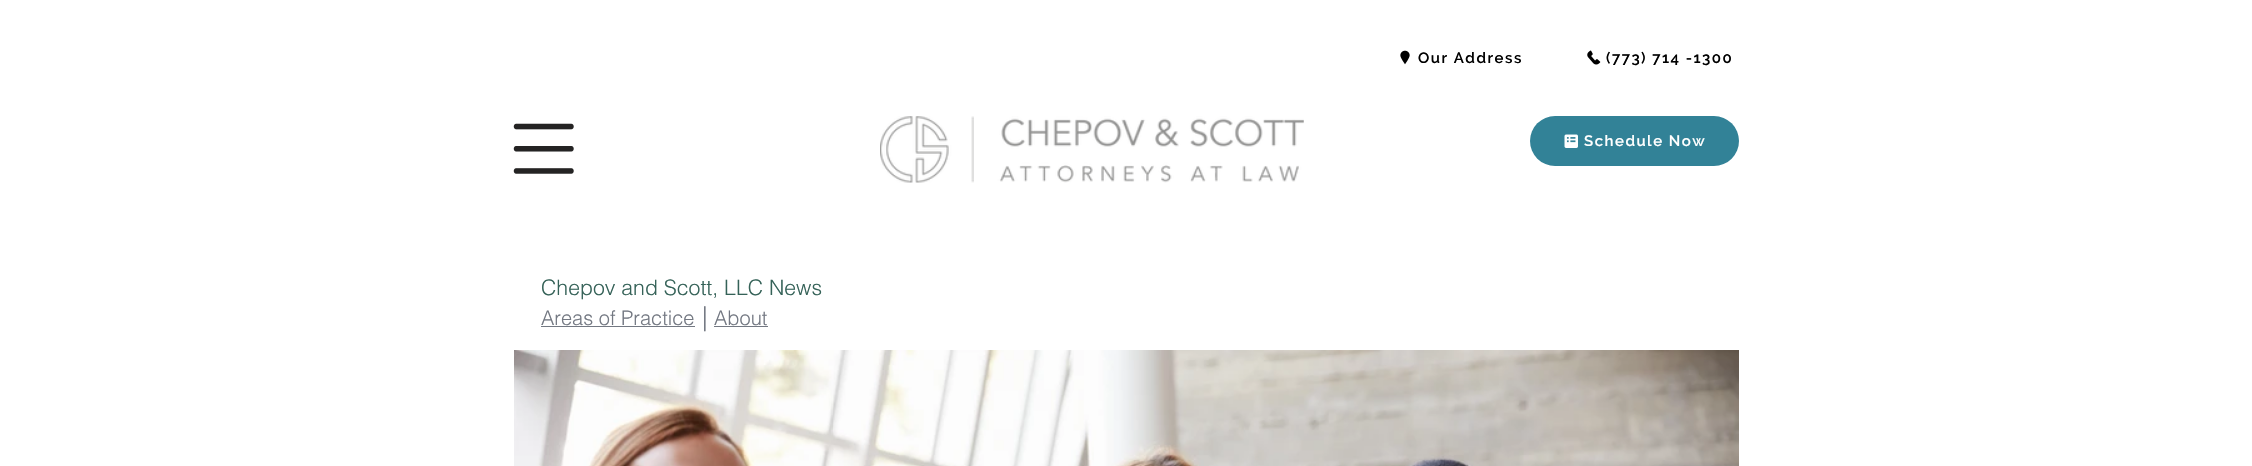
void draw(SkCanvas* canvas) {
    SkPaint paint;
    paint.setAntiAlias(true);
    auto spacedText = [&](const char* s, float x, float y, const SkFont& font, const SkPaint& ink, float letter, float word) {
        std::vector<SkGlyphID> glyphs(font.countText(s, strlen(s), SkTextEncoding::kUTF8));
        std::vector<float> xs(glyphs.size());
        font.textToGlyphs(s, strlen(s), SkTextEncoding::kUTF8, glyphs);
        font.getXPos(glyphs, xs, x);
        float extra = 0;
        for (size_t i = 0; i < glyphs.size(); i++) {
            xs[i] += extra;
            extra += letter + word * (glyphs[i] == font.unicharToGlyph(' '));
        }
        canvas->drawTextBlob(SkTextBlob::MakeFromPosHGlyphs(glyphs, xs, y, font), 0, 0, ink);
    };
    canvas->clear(0xFFFFFFFF);
    canvas->drawImageRect(SkImages::DeferredFromEncodedData(SkData::MakeFromFileName("img1.png")), SkRect::MakeXYWH(1400, 50, 10, 15), SkSamplingOptions());
    SkFont font1(fontMgr->matchFamilyStyle("Raleway", SkFontStyle(600, SkFontStyle::kNormal_Width, SkFontStyle::kUpright_Slant)), 15);
    font1.setSubpixel(true);
    paint.setColor(0xFF000000);
    spacedText("Our Address", 1418, 63, font1, paint, 1.5f, 0);
    canvas->drawImageRect(SkImages::DeferredFromEncodedData(SkData::MakeFromFileName("img2.png")), SkRect::MakeXYWH(1587, 50, 14, 15), SkSamplingOptions());
    spacedText("(773) 714 -1300", 1606, 63, font1, paint, 1.5f, 0);
    canvas->drawImageRect(SkImages::DeferredFromEncodedData(SkData::MakeFromFileName("img3.png")), SkRect::MakeXYWH(513, 123, 61, 51), SkSamplingOptions());
    canvas->drawImageRect(SkImages::DeferredFromEncodedData(SkData::MakeFromFileName("img4.png")), SkRect::MakeXYWH(880, 116, 424, 67), SkSamplingOptions());
    paint.setColor(0xFF328297);
    canvas->drawRoundRect(SkRect::MakeXYWH(1530, 116, 209, 50), 25, 25, paint);
    canvas->drawImageRect(SkImages::DeferredFromEncodedData(SkData::MakeFromFileName("img5.png")), SkRect::MakeXYWH(1564, 134, 14, 14), SkSamplingOptions());
    paint.setColor(0xFFFFFFFF);
    spacedText("Schedule Now", 1584, 146, font1, paint, 1.5f, 0);
    SkFont font2(fontMgr->matchFamilyStyle("helvetica", SkFontStyle(300, SkFontStyle::kNormal_Width, SkFontStyle::kUpright_Slant)), 21.25f);
    font2.setSubpixel(true);
    paint.setColor(0xFF356258);
    canvas->drawString("Chepov and Scott, LLC News", 541, 295, font2, paint);
    SkFont font3(fontMgr->matchFamilyStyle("helvetica", SkFontStyle(300, SkFontStyle::kNormal_Width, SkFontStyle::kUpright_Slant)), 20);
    font3.setSubpixel(true);
    paint.setColor(0xFF737882);
    canvas->drawString("Areas of Practice", 541, 325, font3, paint);
    canvas->drawRect(SkRect::MakeXYWH(541, 326, 154, 1), paint);
    SkFont font4(fontMgr->matchFamilyStyle("helvetica", SkFontStyle(300, SkFontStyle::kNormal_Width, SkFontStyle::kUpright_Slant)), 25);
    font4.setSubpixel(true);
    canvas->drawString("|", 702, 325, font4, paint);
    canvas->drawString("About", 714, 325, font3, paint);
    canvas->drawRect(SkRect::MakeXYWH(714, 326, 54, 1), paint);
    canvas->drawImageRect(SkImages::DeferredFromEncodedData(SkData::MakeFromFileName("img6.png")), SkRect::MakeXYWH(514, 350, 1225, 116), SkSamplingOptions());
}
